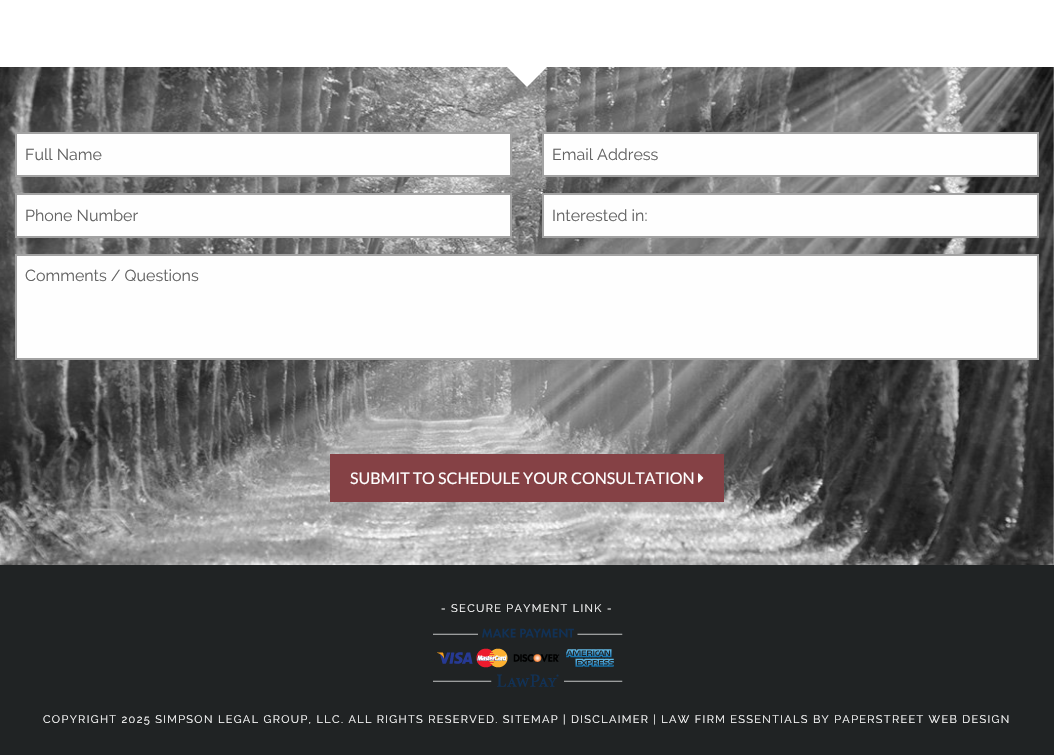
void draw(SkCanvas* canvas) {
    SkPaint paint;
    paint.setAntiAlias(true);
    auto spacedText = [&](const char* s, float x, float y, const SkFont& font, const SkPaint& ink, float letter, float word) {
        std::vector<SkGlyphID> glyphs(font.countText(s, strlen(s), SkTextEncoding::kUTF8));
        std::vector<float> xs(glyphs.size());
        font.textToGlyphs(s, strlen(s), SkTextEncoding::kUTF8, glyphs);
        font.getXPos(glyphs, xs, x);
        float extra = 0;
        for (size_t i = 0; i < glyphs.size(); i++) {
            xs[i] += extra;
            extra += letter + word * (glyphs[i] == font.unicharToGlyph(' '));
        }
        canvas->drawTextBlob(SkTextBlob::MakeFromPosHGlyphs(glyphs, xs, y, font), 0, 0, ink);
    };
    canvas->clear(0xFFFFFFFF);
    canvas->drawImageRect(SkImages::DeferredFromEncodedData(SkData::MakeFromFileName("img1.png")), SkRect::MakeXYWH(0, 67, 1054, 498), SkSamplingOptions());
    paint.setColor(0xFFFFFFFF);
    canvas->drawPath(SkPathBuilder().moveTo(507, 67).lineTo(547, 67).lineTo(527, 87).close().detach(), paint);
    paint.setColor(0xFFFEFEFE);
    canvas->drawRect(SkRect::MakeXYWH(16, 133, 495, 43), paint);
    paint.setStyle(SkPaint::kStroke_Style);
    paint.setStrokeWidth(2);
    paint.setColor(0xFFA2A2A2);
    canvas->drawRect(SkRect::MakeXYWH(16, 133, 495, 43), paint);
    SkFont font1(fontMgr->matchFamilyStyle("Raleway", SkFontStyle::Normal()), 16);
    font1.setSubpixel(true);
    paint.setStyle(SkPaint::kFill_Style);
    paint.setColor(0xFF636363);
    canvas->drawString("Full Name", 25, 160, font1, paint);
    paint.setColor(0xFFFEFEFE);
    canvas->drawRect(SkRect::MakeXYWH(543, 133, 495, 43), paint);
    paint.setStyle(SkPaint::kStroke_Style);
    paint.setColor(0xFFA2A2A2);
    canvas->drawRect(SkRect::MakeXYWH(543, 133, 495, 43), paint);
    paint.setStyle(SkPaint::kFill_Style);
    paint.setColor(0xFF636363);
    canvas->drawString("Email Address", 552, 160, font1, paint);
    paint.setColor(0xFFFEFEFE);
    canvas->drawRect(SkRect::MakeXYWH(16, 194, 495, 43), paint);
    paint.setStyle(SkPaint::kStroke_Style);
    paint.setColor(0xFFA2A2A2);
    canvas->drawRect(SkRect::MakeXYWH(16, 194, 495, 43), paint);
    paint.setStyle(SkPaint::kFill_Style);
    paint.setColor(0xFF636363);
    canvas->drawString("Phone Number", 25, 221, font1, paint);
    paint.setColor(0xFFFEFEFE);
    canvas->drawRect(SkRect::MakeXYWH(543, 194, 495, 43), paint);
    paint.setStyle(SkPaint::kStroke_Style);
    paint.setColor(0xFFA2A2A2);
    canvas->drawRect(SkRect::MakeXYWH(543, 194, 495, 43), paint);
    paint.setStyle(SkPaint::kFill_Style);
    paint.setColor(0xFF636363);
    canvas->drawString("Interested in:", 552, 221, font1, paint);
    paint.setColor(0xFFFEFEFE);
    canvas->drawRect(SkRect::MakeXYWH(16, 255, 1022, 104), paint);
    paint.setStyle(SkPaint::kStroke_Style);
    paint.setColor(0xFFA2A2A2);
    canvas->drawRect(SkRect::MakeXYWH(16, 255, 1022, 104), paint);
    paint.setStyle(SkPaint::kFill_Style);
    paint.setColor(0xFF636363);
    canvas->drawString("Comments / Questions", 25, 281, font1, paint);
    paint.setColor(0xFF854145);
    canvas->drawRect(SkRect::MakeXYWH(330, 454, 394, 48), paint);
    SkFont font2(fontMgr->matchFamilyStyle("Lato", SkFontStyle::Normal()), 16);
    font2.setSubpixel(true);
    paint.setColor(0xFFFFFFFF);
    canvas->drawString("SUBMIT TO SCHEDULE YOUR CONSULTATION", 350, 484, font2, paint);
    canvas->drawImageRect(SkImages::DeferredFromEncodedData(SkData::MakeFromFileName("img2.png")), SkRect::MakeXYWH(698, 473, 6, 10), SkSamplingOptions());
    paint.setColor(0xFF202324);
    canvas->drawRect(SkRect::MakeXYWH(0, 565, 1054, 190), paint);
    SkFont font3(fontMgr->matchFamilyStyle("Raleway", SkFontStyle::Normal()), 11);
    font3.setSubpixel(true);
    paint.setColor(0xFFFFFFFF);
    spacedText("- SECURE PAYMENT LINK -", 441, 612, font3, paint, 1.33f, 0);
    canvas->drawImageRect(SkImages::DeferredFromEncodedData(SkData::MakeFromFileName("img3.png")), SkRect::MakeXYWH(433, 628, 190, 59), SkSamplingOptions());
    spacedText("COPYRIGHT 2025 SIMPSON LEGAL GROUP, LLC. ALL RIGHTS RESERVED. SITEMAP | DISCLAIMER | LAW FIRM ESSENTIALS BY PAPERSTREET WEB DESIGN", 43, 723, font3, paint, 1.33f, 0);
}
